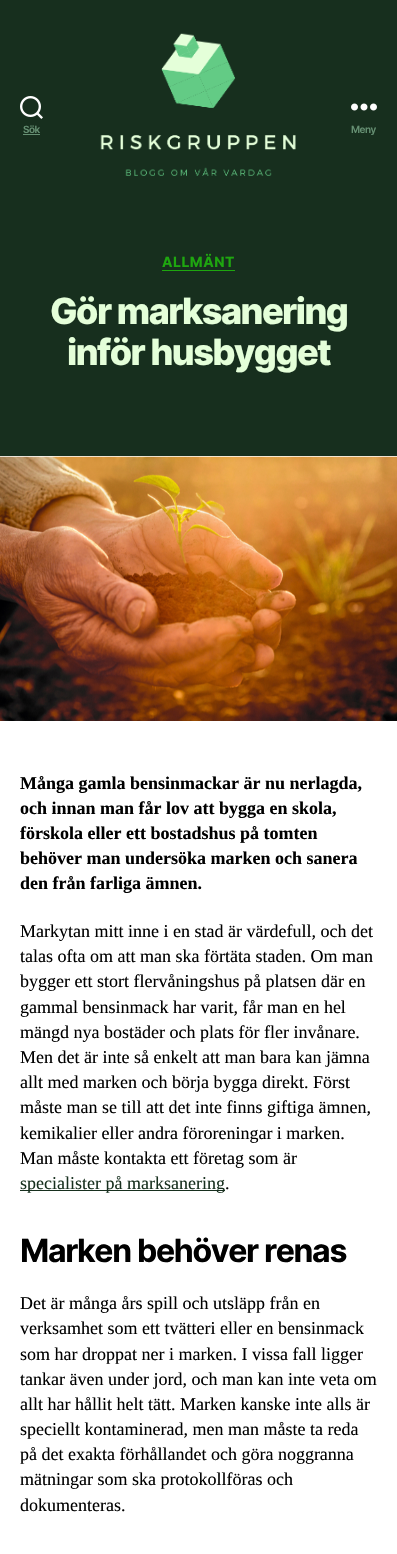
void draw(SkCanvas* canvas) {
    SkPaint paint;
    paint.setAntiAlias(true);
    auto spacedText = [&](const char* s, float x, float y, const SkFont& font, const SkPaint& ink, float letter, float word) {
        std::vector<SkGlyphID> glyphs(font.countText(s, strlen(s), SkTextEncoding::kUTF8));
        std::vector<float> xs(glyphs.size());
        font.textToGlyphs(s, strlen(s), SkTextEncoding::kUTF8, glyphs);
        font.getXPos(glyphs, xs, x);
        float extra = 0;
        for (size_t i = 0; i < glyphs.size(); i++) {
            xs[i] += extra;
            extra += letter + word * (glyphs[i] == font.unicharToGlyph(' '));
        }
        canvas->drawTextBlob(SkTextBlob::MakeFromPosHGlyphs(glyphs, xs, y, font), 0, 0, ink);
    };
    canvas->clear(0xFFFFFFFF);
    paint.setColor(0xFF172F1E);
    canvas->drawRect(SkRect::MakeXYWH(0, 0, 397, 456), paint);
    canvas->drawImageRect(SkImages::DeferredFromEncodedData(SkData::MakeFromFileName("img1.png")), SkRect::MakeXYWH(20, 96, 23, 23), SkSamplingOptions());
    SkFont font1(fontMgr->matchFamilyStyle("Inter", SkFontStyle(600, SkFontStyle::kNormal_Width, SkFontStyle::kUpright_Slant)), 10);
    font1.setSubpixel(true);
    paint.setColor(0xFF658F72);
    spacedText("Sök", 23, 133, font1, paint, -0.5f, 0);
    canvas->drawRect(SkRect::MakeXYWH(23, 134, 17, 1), paint);
    canvas->drawImageRect(SkImages::DeferredFromEncodedData(SkData::MakeFromFileName("img2.png")), SkRect::MakeXYWH(100, 33, 196, 143), SkSamplingOptions());
    canvas->drawImageRect(SkImages::DeferredFromEncodedData(SkData::MakeFromFileName("img3.png")), SkRect::MakeXYWH(351, 103, 26, 8), SkSamplingOptions());
    spacedText("Meny", 351, 133, font1, paint, -0.5f, 0);
    paint.setColor(0xFF1EA70F);
    canvas->drawRect(SkRect::MakeXYWH(162, 270, 73, 1), paint);
    SkFont font2(fontMgr->matchFamilyStyle("Inter", SkFontStyle::Bold()), 14);
    font2.setSubpixel(true);
    spacedText("ALLMÄNT", 162, 267, font2, paint, 0.5f, 0);
    SkFont font3(fontMgr->matchFamilyStyle("Inter", SkFontStyle(800, SkFontStyle::kNormal_Width, SkFontStyle::kUpright_Slant)), 36);
    font3.setSubpixel(true);
    paint.setColor(0xFFE4FFD9);
    spacedText("Gör marksanering", 50, 324, font3, paint, -1.5f, 0);
    spacedText("inför husbygget", 67, 365, font3, paint, -1.5f, 0);
    canvas->drawImageRect(SkImages::DeferredFromEncodedData(SkData::MakeFromFileName("img4.png")), SkRect::MakeXYWH(0, 456, 397, 265), SkSamplingOptions());
    SkFont font4(fontMgr->matchFamilyStyle("Liberation Serif", SkFontStyle::Bold()), 18);
    font4.setSubpixel(true);
    paint.setColor(0xFF000000);
    canvas->drawString("Många gamla bensinmackar är nu nerlagda,", 20, 789, font4, paint);
    canvas->drawString("och innan man får lov att bygga en skola,", 20, 814, font4, paint);
    canvas->drawString("förskola eller ett bostadshus på tomten", 20, 839, font4, paint);
    canvas->drawString("behöver man undersöka marken och sanera", 20, 864, font4, paint);
    canvas->drawString("den från farliga ämnen.", 20, 889, font4, paint);
    SkFont font5(fontMgr->matchFamilyStyle("Liberation Serif", SkFontStyle::Normal()), 18);
    font5.setSubpixel(true);
    canvas->drawString("Markytan mitt inne i en stad är värdefull, och det", 20, 937, font5, paint);
    canvas->drawString("talas ofta om att man ska förtäta staden. Om man", 20, 962, font5, paint);
    canvas->drawString("bygger ett stort flervåningshus på platsen där en", 20, 987, font5, paint);
    canvas->drawString("gammal bensinmack har varit, får man en hel", 20, 1013, font5, paint);
    canvas->drawString("mängd nya bostäder och plats för fler invånare.", 20, 1038, font5, paint);
    canvas->drawString("Men det är inte så enkelt att man bara kan jämna", 20, 1063, font5, paint);
    canvas->drawString("allt med marken och börja bygga direkt. Först", 20, 1088, font5, paint);
    canvas->drawString("måste man se till att det inte finns giftiga ämnen,", 20, 1113, font5, paint);
    canvas->drawString("kemikalier eller andra föroreningar i marken.", 20, 1139, font5, paint);
    canvas->drawString("Man måste kontakta ett företag som är", 20, 1164, font5, paint);
    paint.setColor(0xFF172F1E);
    canvas->drawRect(SkRect::MakeXYWH(20, 1190, 205, 1), paint);
    canvas->drawString("specialister på marksanering", 20, 1189, font5, paint);
    paint.setColor(0xFF000000);
    canvas->drawString(".", 225, 1189, font5, paint);
    SkFont font6(fontMgr->matchFamilyStyle("Inter", SkFontStyle::Bold()), 32);
    font6.setSubpixel(true);
    spacedText("Marken behöver renas", 20, 1262, font6, paint, -1.3f, 0);
    canvas->drawString("Det är många års spill och utsläpp från en", 20, 1309, font5, paint);
    canvas->drawString("verksamhet som ett tvätteri eller en bensinmack", 20, 1334, font5, paint);
    canvas->drawString("som har droppat ner i marken. I vissa fall ligger", 20, 1360, font5, paint);
    canvas->drawString("tankar även under jord, och man kan inte veta om", 20, 1385, font5, paint);
    canvas->drawString("allt har hållit helt tätt. Marken kanske inte alls är", 20, 1410, font5, paint);
    canvas->drawString("speciellt kontaminerad, men man måste ta reda", 20, 1435, font5, paint);
    canvas->drawString("på det exakta förhållandet och göra noggranna", 20, 1460, font5, paint);
    canvas->drawString("mätningar som ska protokollföras och", 20, 1485, font5, paint);
    canvas->drawString("dokumenteras.", 20, 1511, font5, paint);
}
